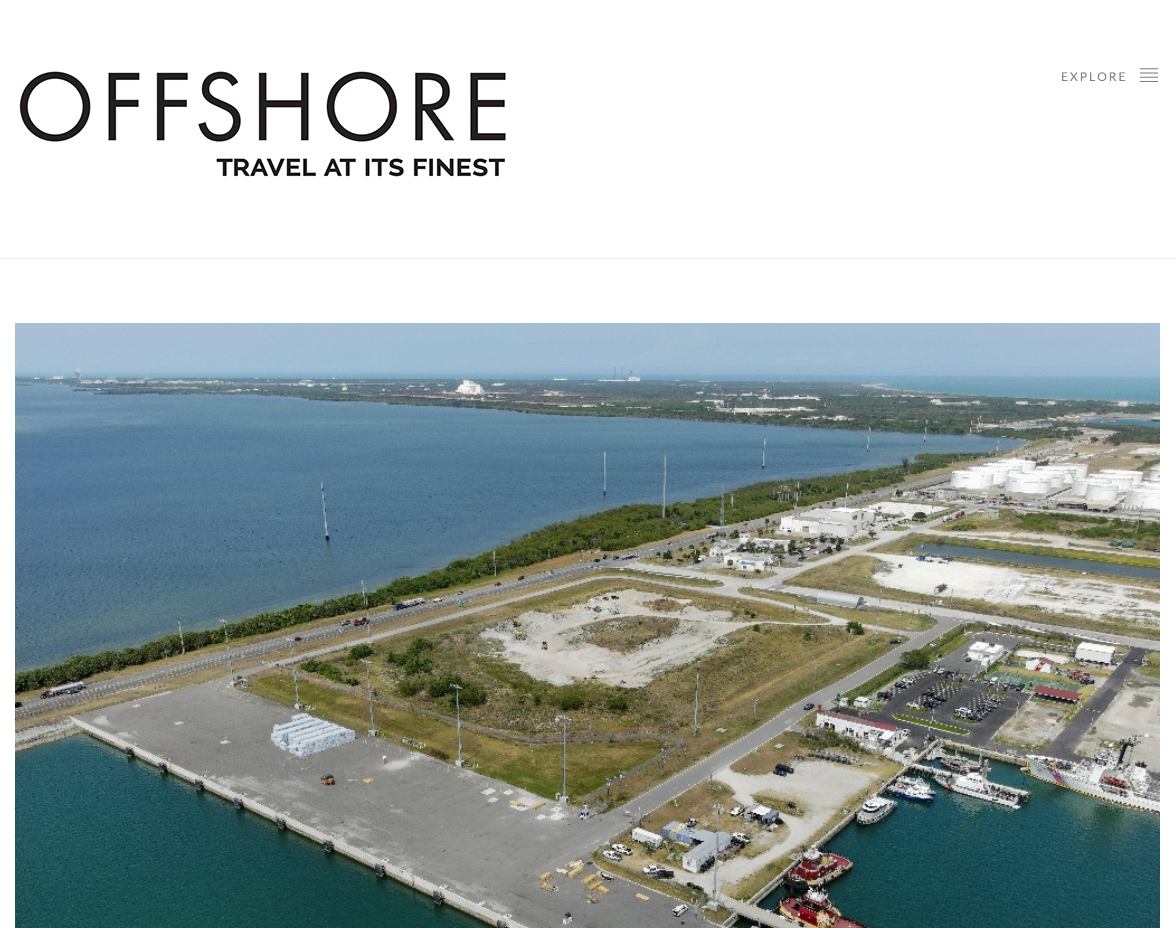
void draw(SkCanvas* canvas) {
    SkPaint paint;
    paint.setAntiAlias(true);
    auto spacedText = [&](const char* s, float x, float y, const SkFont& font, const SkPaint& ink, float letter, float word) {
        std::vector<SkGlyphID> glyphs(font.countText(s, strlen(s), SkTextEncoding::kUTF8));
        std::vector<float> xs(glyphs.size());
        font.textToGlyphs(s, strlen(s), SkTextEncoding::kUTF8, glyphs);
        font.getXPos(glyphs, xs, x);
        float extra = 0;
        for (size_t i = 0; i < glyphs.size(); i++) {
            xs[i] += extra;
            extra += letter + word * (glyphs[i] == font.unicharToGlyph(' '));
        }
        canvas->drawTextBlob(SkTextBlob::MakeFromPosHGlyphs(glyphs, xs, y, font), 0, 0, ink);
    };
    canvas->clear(0xFFFFFFFF);
    canvas->drawImageRect(SkImages::DeferredFromEncodedData(SkData::MakeFromFileName("img1.png")), SkRect::MakeXYWH(19, 71, 487, 106), SkSamplingOptions());
    SkFont font1(fontMgr->matchFamilyStyle("Lato", SkFontStyle::Normal()), 12);
    font1.setSubpixel(true);
    paint.setColor(0xFF808080);
    spacedText("EXPLORE", 1061, 81, font1, paint, 2, 0);
    canvas->drawImageRect(SkImages::DeferredFromEncodedData(SkData::MakeFromFileName("img2.png")), SkRect::MakeXYWH(1140, 68, 18, 14), SkSamplingOptions());
    paint.setColor(0xFFECECEC);
    canvas->drawRect(SkRect::MakeXYWH(0, 258, 1175, 1), paint);
    canvas->drawImageRect(SkImages::DeferredFromEncodedData(SkData::MakeFromFileName("img3.png")), SkRect::MakeXYWH(15, 323, 1145, 605), SkSamplingOptions());
}
